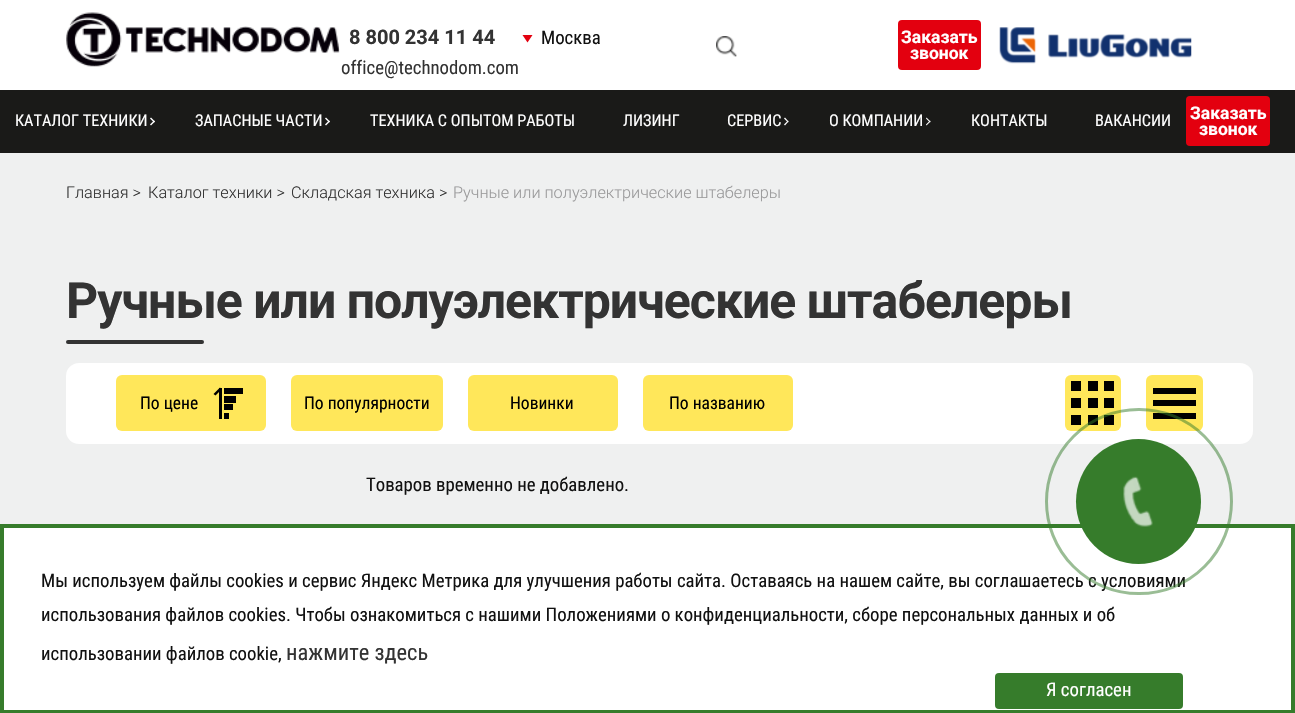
void draw(SkCanvas* canvas) {
    SkPaint paint;
    paint.setAntiAlias(true);
    auto spacedText = [&](const char* s, float x, float y, const SkFont& font, const SkPaint& ink, float letter, float word) {
        std::vector<SkGlyphID> glyphs(font.countText(s, strlen(s), SkTextEncoding::kUTF8));
        std::vector<float> xs(glyphs.size());
        font.textToGlyphs(s, strlen(s), SkTextEncoding::kUTF8, glyphs);
        font.getXPos(glyphs, xs, x);
        float extra = 0;
        for (size_t i = 0; i < glyphs.size(); i++) {
            xs[i] += extra;
            extra += letter + word * (glyphs[i] == font.unicharToGlyph(' '));
        }
        canvas->drawTextBlob(SkTextBlob::MakeFromPosHGlyphs(glyphs, xs, y, font), 0, 0, ink);
    };
    canvas->clear(0xFFFFFFFF);
    canvas->drawImageRect(SkImages::DeferredFromEncodedData(SkData::MakeFromFileName("img1.png")), SkRect::MakeXYWH(66, 12, 274, 55), SkSamplingOptions());
    SkFont font1(fontMgr->matchFamilyStyle("Roboto", SkFontStyle::Bold()), 20);
    font1.setSubpixel(true);
    paint.setColor(0xFF333333);
    canvas->drawString("8 800 234 11 44", 349, 44, font1, paint);
    SkFont font2(fontMgr->matchFamilyStyle("Roboto Condensed", SkFontStyle::Normal()), 18.75f);
    font2.setSubpixel(true);
    canvas->drawString("office@technodom.com", 341, 74, font2, paint);
    paint.setColor(0xFFE3000F);
    canvas->drawPath(SkPathBuilder().moveTo(522.5f, 35).lineTo(532.5f, 35).lineTo(527.5f, 42.5f).close().detach(), paint);
    paint.setColor(0xFF111111);
    canvas->drawString("Москва", 541, 44, font2, paint);
    canvas->drawImageRect(SkImages::DeferredFromEncodedData(SkData::MakeFromFileName("img2.png")), SkRect::MakeXYWH(716, 36, 21, 21), SkSamplingOptions());
    paint.setColor(0xFFE3000F);
    canvas->drawRoundRect(SkRect::MakeXYWH(898, 20, 83, 50), 4, 4, paint);
    SkFont font3(fontMgr->matchFamilyStyle("Roboto", SkFontStyle::Bold()), 17.5f);
    font3.setSubpixel(true);
    paint.setColor(0xFFFFFFFF);
    canvas->drawString("Заказать", 901, 43, font3, paint);
    canvas->drawString("звонок", 910, 59, font3, paint);
    canvas->drawImageRect(SkImages::DeferredFromEncodedData(SkData::MakeFromFileName("img3.png")), SkRect::MakeXYWH(999, 27, 193, 37), SkSamplingOptions());
    paint.setColor(0xFF1A1A18);
    canvas->drawRect(SkRect::MakeXYWH(0, 90, 1295, 63), paint);
    SkFont font4(fontMgr->matchFamilyStyle("Roboto Condensed", SkFontStyle::Normal()), 16.25f);
    font4.setSubpixel(true);
    paint.setColor(0xFFFFFFFF);
    canvas->drawString("КАТАЛОГ ТЕХНИКИ", 15, 126, font4, paint);
    canvas->drawPath(SkPathBuilder().moveTo(154, 122.5f).lineTo(150, 118.5f).lineTo(151, 117.5f).lineTo(155, 121.5f).close().detach(), paint);
    canvas->drawPath(SkPathBuilder().moveTo(151, 125.5f).lineTo(150, 124.5f).lineTo(154, 120.5f).lineTo(155, 121.5f).close().detach(), paint);
    canvas->drawString("ЗАПАСНЫЕ ЧАСТИ", 195, 126, font4, paint);
    canvas->drawPath(SkPathBuilder().moveTo(329, 122.5f).lineTo(325, 118.5f).lineTo(326, 117.5f).lineTo(330, 121.5f).close().detach(), paint);
    canvas->drawPath(SkPathBuilder().moveTo(326, 125.5f).lineTo(325, 124.5f).lineTo(329, 120.5f).lineTo(330, 121.5f).close().detach(), paint);
    canvas->drawString("ТЕХНИКА С ОПЫТОМ РАБОТЫ", 370, 126, font4, paint);
    canvas->drawString("ЛИЗИНГ", 623, 126, font4, paint);
    canvas->drawString("СЕРВИС", 727, 126, font4, paint);
    canvas->drawPath(SkPathBuilder().moveTo(788, 122.5f).lineTo(784, 118.5f).lineTo(785, 117.5f).lineTo(788.5f, 121.5f).close().detach(), paint);
    canvas->drawPath(SkPathBuilder().moveTo(785, 125.5f).lineTo(784, 124.5f).lineTo(788, 120.5f).lineTo(788.5f, 121.5f).close().detach(), paint);
    canvas->drawString("О КОМПАНИИ", 829, 126, font4, paint);
    canvas->drawPath(SkPathBuilder().moveTo(930, 122.5f).lineTo(926, 118.5f).lineTo(926.5f, 117.5f).lineTo(930.5f, 121.5f).close().detach(), paint);
    canvas->drawPath(SkPathBuilder().moveTo(926.5f, 125.5f).lineTo(926, 124.5f).lineTo(930, 120.5f).lineTo(930.5f, 121.5f).close().detach(), paint);
    canvas->drawString("КОНТАКТЫ", 971, 126, font4, paint);
    canvas->drawString("ВАКАНСИИ", 1095, 126, font4, paint);
    paint.setColor(0xFFE3000F);
    canvas->drawRoundRect(SkRect::MakeXYWH(1186, 96, 84, 50), 4, 4, paint);
    paint.setColor(0xFFFFFFFF);
    canvas->drawString("Заказать", 1190, 119, font3, paint);
    canvas->drawString("звонок", 1199, 135, font3, paint);
    paint.setColor(0xFFEFF0F0);
    canvas->drawRect(SkRect::MakeXYWH(0, 153, 1295, 371), paint);
    SkFont font5(fontMgr->matchFamilyStyle("Roboto", SkFontStyle(300, SkFontStyle::kNormal_Width, SkFontStyle::kUpright_Slant)), 16.25f);
    font5.setSubpixel(true);
    paint.setColor(0xFF333333);
    canvas->drawString("Главная >", 66, 198, font5, paint);
    canvas->drawString("Каталог техники >", 148, 198, font5, paint);
    canvas->drawString("Складская техника >", 291, 198, font5, paint);
    paint.setColor(0xFF9A9A9B);
    canvas->drawString("Ручные или полуэлектрические штабелеры", 453, 198, font5, paint);
    SkFont font6(fontMgr->matchFamilyStyle("Roboto", SkFontStyle::Bold()), 50);
    font6.setSubpixel(true);
    paint.setColor(0xFF333333);
    spacedText("Ручные или полуэлектрические штабелеры", 66, 318, font6, paint, -1, 0);
    canvas->drawRoundRect(SkRect::MakeXYWH(66, 340, 138, 4), 2, 2, paint);
    paint.setColor(0xFFFFFFFF);
    canvas->drawRoundRect(SkRect::MakeXYWH(66, 363, 1187, 81), 13, 13, paint);
    paint.setColor(0xFFFFE75A);
    canvas->drawRoundRect(SkRect::MakeXYWH(116, 375, 150, 56), 6, 6, paint);
    SkFont font7(fontMgr->matchFamilyStyle("Roboto Condensed", SkFontStyle::Normal()), 17.5f);
    font7.setSubpixel(true);
    paint.setColor(0xFF000000);
    canvas->drawString("По цене", 140, 409, font7, paint);
    canvas->drawRect(SkRect::MakeXYWH(219, 388, 3, 31), paint);
    canvas->drawPath(SkPathBuilder().moveTo(220, 387.5f).lineTo(221.5f, 389.5f).lineTo(215.5f, 395.5f).lineTo(213.5f, 394).close().detach(), paint);
    canvas->drawRect(SkRect::MakeXYWH(224, 388, 19, 6), paint);
    canvas->drawRect(SkRect::MakeXYWH(224, 396, 12, 7), paint);
    canvas->drawRect(SkRect::MakeXYWH(224, 404, 9, 6), paint);
    canvas->drawRect(SkRect::MakeXYWH(224, 413, 5, 6), paint);
    paint.setColor(0xFFFFE75A);
    canvas->drawRoundRect(SkRect::MakeXYWH(291, 375, 152, 56), 6, 6, paint);
    paint.setColor(0xFF000000);
    canvas->drawString("По популярности", 304, 409, font7, paint);
    paint.setColor(0xFFFFE75A);
    canvas->drawRoundRect(SkRect::MakeXYWH(468, 375, 150, 56), 6, 6, paint);
    paint.setColor(0xFF000000);
    canvas->drawString("Новинки", 510, 409, font7, paint);
    paint.setColor(0xFFFFE75A);
    canvas->drawRoundRect(SkRect::MakeXYWH(643, 375, 150, 56), 6, 6, paint);
    paint.setColor(0xFF000000);
    canvas->drawString("По названию", 669, 409, font7, paint);
    paint.setColor(0xFFFFE75A);
    canvas->drawRoundRect(SkRect::MakeXYWH(1065, 375, 56, 56), 6, 6, paint);
    paint.setColor(0xFF000000);
    canvas->drawRect(SkRect::MakeXYWH(1071, 381, 10, 10), paint);
    canvas->drawRect(SkRect::MakeXYWH(1088, 381, 10, 10), paint);
    canvas->drawRect(SkRect::MakeXYWH(1104, 381, 10, 10), paint);
    canvas->drawRect(SkRect::MakeXYWH(1071, 398, 10, 10), paint);
    canvas->drawRect(SkRect::MakeXYWH(1088, 398, 10, 10), paint);
    canvas->drawRect(SkRect::MakeXYWH(1104, 398, 10, 10), paint);
    canvas->drawRect(SkRect::MakeXYWH(1071, 415, 10, 10), paint);
    canvas->drawRect(SkRect::MakeXYWH(1088, 415, 10, 10), paint);
    canvas->drawRect(SkRect::MakeXYWH(1104, 415, 10, 10), paint);
    paint.setColor(0xFFFFE75A);
    canvas->drawRoundRect(SkRect::MakeXYWH(1146, 375, 57, 56), 6, 6, paint);
    paint.setColor(0xFF000000);
    canvas->drawRect(SkRect::MakeXYWH(1153, 400, 43, 6), paint);
    canvas->drawRect(SkRect::MakeXYWH(1153, 388, 43, 6), paint);
    canvas->drawRect(SkRect::MakeXYWH(1153, 413, 43, 6), paint);
    paint.setColor(0xFF111111);
    canvas->drawString("Товаров временно не добавлено.", 366, 491, font2, paint);
    paint.setStyle(SkPaint::kStroke_Style);
    paint.setStrokeWidth(4);
    paint.setColor(0xFF367C2B);
    canvas->drawRect(SkRect::MakeXYWH(2, 526, 1291, 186), paint);
    paint.setStyle(SkPaint::kFill_Style);
    paint.setColor(0xFF111111);
    canvas->drawString("Мы используем файлы cookies и сервис Яндекс Метрика для улучшения работы сайта. Оставаясь на нашем сайте, вы соглашаетесь с условиями", 41, 587, font2, paint);
    paint.setStyle(SkPaint::kStroke_Style);
    paint.setStrokeWidth(3);
    paint.setColor(0x80367C2B);
    canvas->drawRoundRect(SkRect::MakeXYWH(1046.5f, 409.5f, 185, 184), 92, 92, paint);
    paint.setStyle(SkPaint::kFill_Style);
    paint.setColor(0xFF367C2B);
    canvas->drawCircle(1138.5f, 501.5f, 62.5f, paint);
    canvas->drawImageRect(SkImages::DeferredFromEncodedData(SkData::MakeFromFileName("img4.png")), SkRect::MakeXYWH(1123, 476, 30, 51), SkSamplingOptions());
    paint.setColor(0xFF111111);
    canvas->drawString("использования файлов cookies. Чтобы ознакомиться с нашими Положениями о конфиденциальности, сборе персональных данных и об", 41, 621, font2, paint);
    canvas->drawString("использовании файлов cookie,", 41, 660, font2, paint);
    SkFont font8(fontMgr->matchFamilyStyle("Roboto Condensed", SkFontStyle::Normal()), 22.5f);
    font8.setSubpixel(true);
    paint.setColor(0xFF333333);
    canvas->drawString("нажмите здесь", 286, 660, font8, paint);
    paint.setColor(0xFF367C2B);
    canvas->drawRoundRect(SkRect::MakeXYWH(995, 673, 188, 36), 4, 4, paint);
    paint.setColor(0xFFFFFFFF);
    canvas->drawString("Я согласен", 1046, 696, font2, paint);
}
